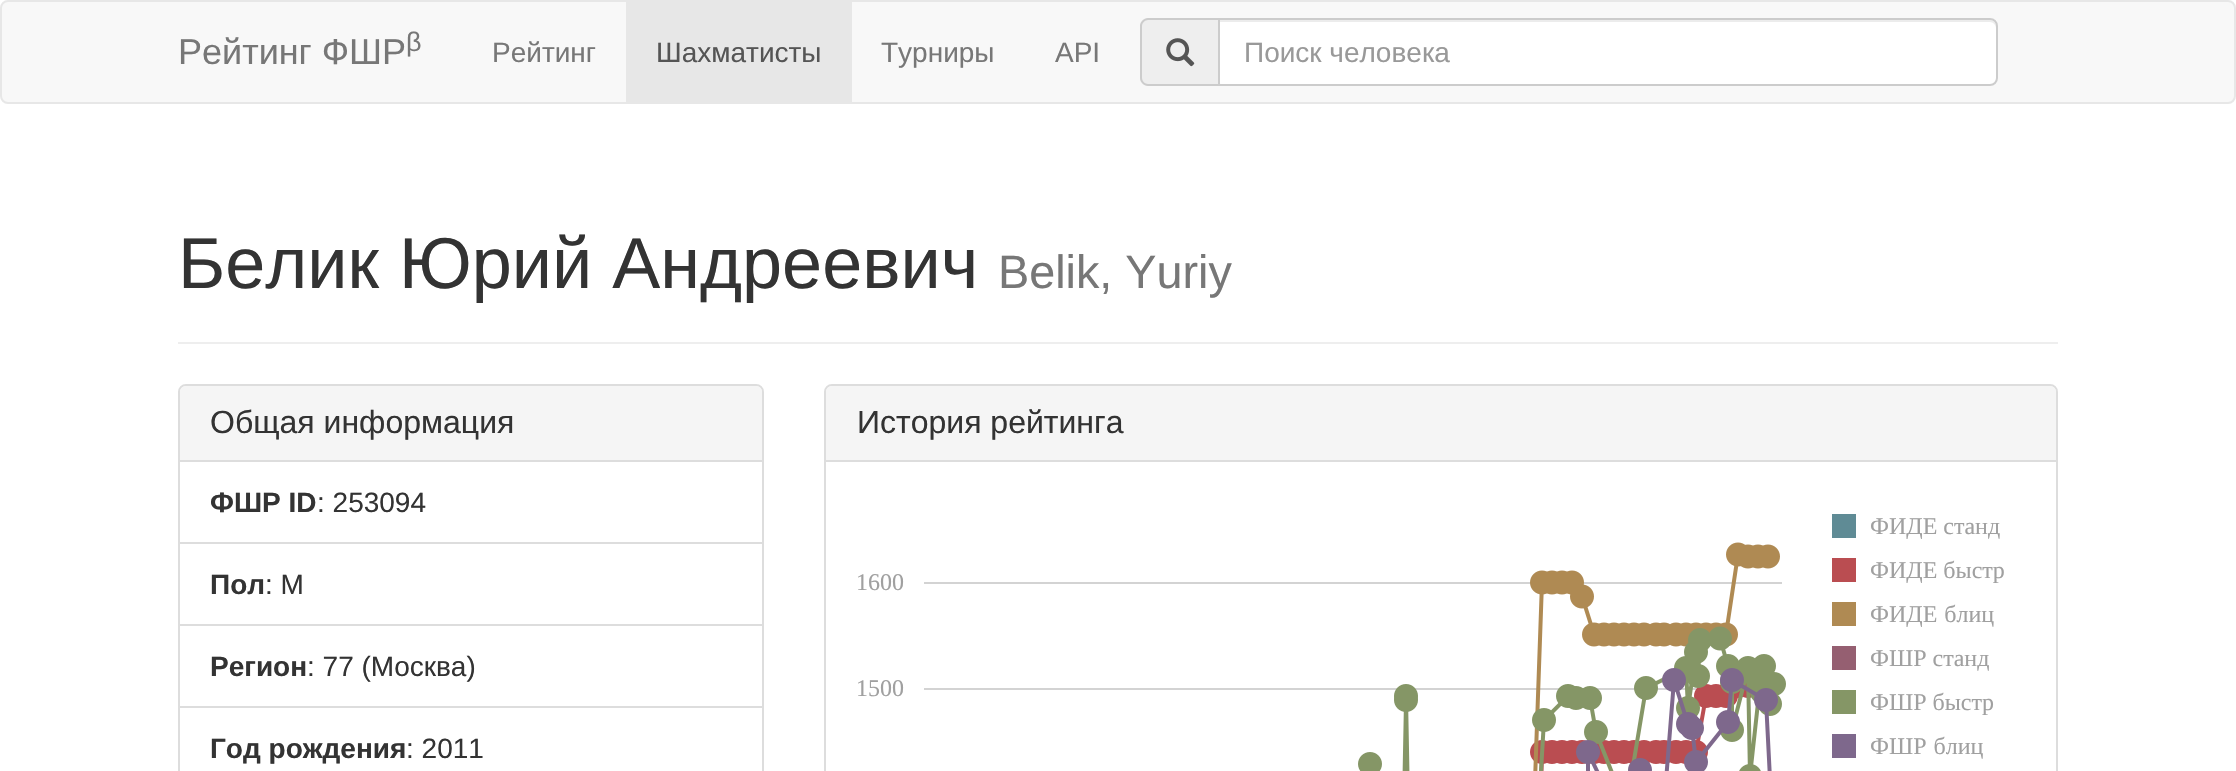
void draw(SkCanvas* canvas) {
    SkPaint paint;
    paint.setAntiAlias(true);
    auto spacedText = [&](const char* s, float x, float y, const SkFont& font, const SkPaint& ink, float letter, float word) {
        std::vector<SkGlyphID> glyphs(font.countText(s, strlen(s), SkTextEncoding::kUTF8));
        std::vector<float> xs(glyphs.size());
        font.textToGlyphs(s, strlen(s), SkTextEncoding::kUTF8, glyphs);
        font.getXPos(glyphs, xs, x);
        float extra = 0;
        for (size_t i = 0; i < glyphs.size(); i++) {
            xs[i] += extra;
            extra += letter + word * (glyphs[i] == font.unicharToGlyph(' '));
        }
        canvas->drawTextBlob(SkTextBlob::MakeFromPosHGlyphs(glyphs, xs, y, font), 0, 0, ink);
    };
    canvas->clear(0xFFFFFFFF);
    paint.setColor(0xFFF8F8F8);
    canvas->drawRoundRect(SkRect::MakeXYWH(1, 1, 2234, 102), 7, 7, paint);
    paint.setStyle(SkPaint::kStroke_Style);
    paint.setStrokeWidth(2);
    paint.setColor(0xFFE7E7E7);
    canvas->drawRoundRect(SkRect::MakeXYWH(1, 1, 2234, 102), 7, 7, paint);
    SkFont font1(fontMgr->matchFamilyStyle("Liberation Sans", SkFontStyle::Normal()), 36);
    font1.setSubpixel(true);
    paint.setStyle(SkPaint::kFill_Style);
    paint.setColor(0xFF777777);
    canvas->drawString("Рейтинг ФШР", 178, 64, font1, paint);
    SkFont font2(fontMgr->matchFamilyStyle("Liberation Sans", SkFontStyle::Normal()), 27);
    font2.setSubpixel(true);
    canvas->drawString("β", 406, 51, font2, paint);
    SkFont font3(fontMgr->matchFamilyStyle("Liberation Sans", SkFontStyle::Normal()), 28);
    font3.setSubpixel(true);
    canvas->drawString("Рейтинг", 492, 62, font3, paint);
    paint.setColor(0xFFE7E7E7);
    canvas->drawRect(SkRect::MakeXYWH(626, 2, 226, 100), paint);
    paint.setColor(0xFF555555);
    canvas->drawString("Шахматисты", 656, 62, font3, paint);
    paint.setColor(0xFF777777);
    canvas->drawString("Турниры", 881, 62, font3, paint);
    canvas->drawString("API", 1055, 62, font3, paint);
    paint.setColor(0xFFEEEEEE);
    canvas->drawPath(SkPathBuilder().moveTo(1148, 18).lineTo(1218, 18).lineTo(1218, 86).lineTo(1148, 86).cubicTo(1143.5f, 86, 1140, 82.5f, 1140, 78).lineTo(1140, 26).cubicTo(1140, 21.5f, 1143.5f, 18, 1148, 18).close().detach(), paint);
    paint.setColor(0xFFCCCCCC);
    canvas->drawPath(SkPathBuilder(SkPathFillType::kEvenOdd).moveTo(1148, 18).lineTo(1218, 18).lineTo(1218, 86).lineTo(1148, 86).cubicTo(1144, 86, 1140, 82, 1140, 78).lineTo(1140, 26).cubicTo(1140, 22, 1144, 18, 1148, 18).close().moveTo(1148, 20).lineTo(1218, 20).lineTo(1218, 84).lineTo(1148, 84).cubicTo(1145, 84, 1142, 81, 1142, 78).lineTo(1142, 26).cubicTo(1142, 23, 1145, 20, 1148, 20).close().detach(), paint);
    canvas->drawImageRect(SkImages::DeferredFromEncodedData(SkData::MakeFromFileName("img1.png")), SkRect::MakeXYWH(1166, 38, 29, 29), SkSamplingOptions());
    paint.setColor(0xFFFFFFFF);
    canvas->drawRoundRect(SkRect::MakeXYWH(1218, 18, 780, 68), 8, 8, paint);
    paint.setColor(0xFFECECEC);
    canvas->drawPath(SkPathBuilder().moveTo(1220, 22).lineTo(1990, 22).cubicTo(1993, 22, 1996, 25, 1996, 28).lineTo(1996, 26).cubicTo(1996, 23, 1993, 20, 1990, 20).lineTo(1220, 20).close().detach(), paint);
    paint.setStyle(SkPaint::kStroke_Style);
    paint.setColor(0xFFCCCCCC);
    canvas->drawPath(SkPathBuilder().moveTo(1219, 19).lineTo(1990, 19).cubicTo(1994, 19, 1997, 22, 1997, 26).lineTo(1997, 78).cubicTo(1997, 82, 1994, 85, 1990, 85).lineTo(1219, 85).close().detach(), paint);
    paint.setStyle(SkPaint::kFill_Style);
    paint.setColor(0xFF999999);
    canvas->drawString("Поиск человека", 1244, 62, font3, paint);
    paint.setColor(0xFFEEEEEE);
    canvas->drawRect(SkRect::MakeXYWH(178, 342, 1880, 2), paint);
    SkFont font4(fontMgr->matchFamilyStyle("Liberation Sans", SkFontStyle::Normal()), 72);
    font4.setSubpixel(true);
    paint.setColor(0xFF333333);
    canvas->drawString("Белик Юрий Андреевич", 178, 288, font4, paint);
    SkFont font5(fontMgr->matchFamilyStyle("Liberation Sans", SkFontStyle::Normal()), 46.75f);
    font5.setSubpixel(true);
    paint.setColor(0xFF777777);
    canvas->drawString("Belik, Yuriy", 998, 288, font5, paint);
    paint.setStyle(SkPaint::kStroke_Style);
    paint.setColor(0xFFDDDDDD);
    canvas->drawRoundRect(SkRect::MakeXYWH(179, 385, 584, 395), 7, 7, paint);
    paint.setStyle(SkPaint::kFill_Style);
    paint.setColor(0xFFF5F5F5);
    canvas->drawPath(SkPathBuilder().moveTo(186, 386).lineTo(756, 386).cubicTo(759.5f, 386, 762, 388.5f, 762, 392).lineTo(762, 462).lineTo(180, 462).lineTo(180, 392).cubicTo(180, 388.5f, 182.5f, 386, 186, 386).close().detach(), paint);
    paint.setColor(0xFFDDDDDD);
    canvas->drawRect(SkRect::MakeXYWH(180, 460, 582, 2), paint);
    SkFont font6(fontMgr->matchFamilyStyle("Liberation Sans", SkFontStyle::Normal()), 32);
    font6.setSubpixel(true);
    paint.setColor(0xFF333333);
    canvas->drawString("Общая информация", 210, 433, font6, paint);
    paint.setColor(0xFFDDDDDD);
    canvas->drawRect(SkRect::MakeXYWH(180, 542, 582, 2), paint);
    SkFont font7(fontMgr->matchFamilyStyle("Liberation Sans", SkFontStyle::Bold()), 28);
    font7.setSubpixel(true);
    paint.setColor(0xFF333333);
    canvas->drawString("ФШР ID", 210, 512, font7, paint);
    canvas->drawString(": 253094", 317, 512, font3, paint);
    paint.setColor(0xFFDDDDDD);
    canvas->drawRect(SkRect::MakeXYWH(180, 624, 582, 2), paint);
    paint.setColor(0xFF333333);
    canvas->drawString("Пол", 210, 594, font7, paint);
    canvas->drawString(": М", 265, 594, font3, paint);
    canvas->drawString("Регион", 210, 676, font7, paint);
    canvas->drawString(": 77 (Москва)", 307, 676, font3, paint);
    paint.setColor(0xFFDDDDDD);
    canvas->drawRect(SkRect::MakeXYWH(180, 706, 582, 2), paint);
    paint.setColor(0xFF333333);
    canvas->drawString("Год рождения", 210, 758, font7, paint);
    canvas->drawString(": 2011", 406, 758, font3, paint);
    paint.setStyle(SkPaint::kStroke_Style);
    paint.setColor(0xFFDDDDDD);
    canvas->drawRoundRect(SkRect::MakeXYWH(825, 385, 1232, 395), 7, 7, paint);
    paint.setStyle(SkPaint::kFill_Style);
    paint.setColor(0xFFF5F5F5);
    canvas->drawPath(SkPathBuilder().moveTo(832, 386).lineTo(2050, 386).cubicTo(2053.5f, 386, 2056, 388.5f, 2056, 392).lineTo(2056, 462).lineTo(826, 462).lineTo(826, 392).cubicTo(826, 388.5f, 828.5f, 386, 832, 386).close().detach(), paint);
    paint.setColor(0xFFDDDDDD);
    canvas->drawRect(SkRect::MakeXYWH(826, 460, 1230, 2), paint);
    paint.setColor(0xFF333333);
    canvas->drawString("История рейтинга", 857, 433, font6, paint);
    canvas->drawImageRect(SkImages::DeferredFromEncodedData(SkData::MakeFromFileName("img2.png")), SkRect::MakeXYWH(924, 514, 932, 257), SkSamplingOptions());
    SkFont font8(fontMgr->matchFamilyStyle("Liberation Serif", SkFontStyle::Normal()), 24);
    font8.setSubpixel(true);
    paint.setColor(0xFFA0A0A0);
    canvas->drawString("ФИДЕ станд", 1870, 534, font8, paint);
    canvas->drawString("1600", 856, 590, font8, paint);
    canvas->drawString("ФИДЕ быстр", 1870, 578, font8, paint);
    spacedText("ФИДЕ блиц", 1870, 622, font8, paint, 0, 1);
    canvas->drawString("ФШР станд", 1870, 666, font8, paint);
    canvas->drawString("1500", 856, 696, font8, paint);
    canvas->drawString("ФШР быстр", 1870, 710, font8, paint);
    spacedText("ФШР блиц", 1870, 754, font8, paint, 0, 1);
}
